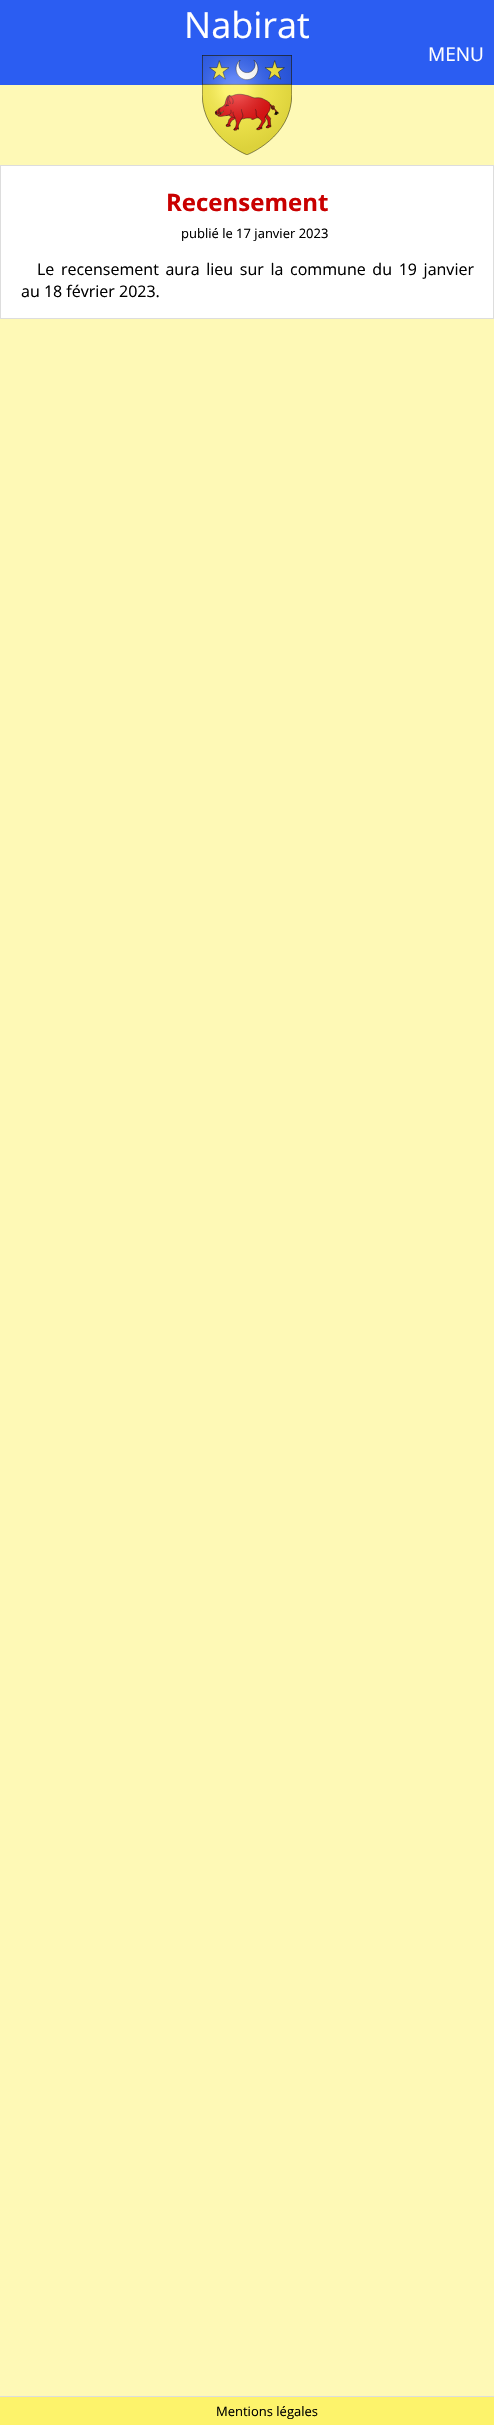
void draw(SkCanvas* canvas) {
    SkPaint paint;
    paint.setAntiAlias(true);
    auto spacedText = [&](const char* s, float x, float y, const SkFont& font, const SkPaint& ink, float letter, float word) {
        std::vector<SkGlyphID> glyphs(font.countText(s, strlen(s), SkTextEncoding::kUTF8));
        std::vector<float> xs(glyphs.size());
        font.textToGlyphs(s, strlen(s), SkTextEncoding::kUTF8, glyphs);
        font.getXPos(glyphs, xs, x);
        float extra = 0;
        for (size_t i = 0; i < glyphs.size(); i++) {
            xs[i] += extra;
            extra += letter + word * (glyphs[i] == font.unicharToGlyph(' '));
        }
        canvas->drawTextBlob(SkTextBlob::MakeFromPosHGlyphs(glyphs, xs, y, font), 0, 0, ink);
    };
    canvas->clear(0xFFFEF9B6);
    paint.setColor(0xFF2B5DF2);
    canvas->drawRect(SkRect::MakeXYWH(0, 0, 494, 85), paint);
    SkFont font1(fontMgr->matchFamilyStyle("Open Sans", SkFontStyle::Normal()), 36);
    font1.setSubpixel(true);
    paint.setColor(0xFFFFFFFF);
    canvas->drawString("Nabirat", 184, 38, font1, paint);
    canvas->drawImageRect(SkImages::DeferredFromEncodedData(SkData::MakeFromFileName("img1.png")), SkRect::MakeXYWH(202, 55, 90, 100), SkSamplingOptions());
    SkFont font2(fontMgr->matchFamilyStyle("Open Sans", SkFontStyle::Normal()), 19);
    font2.setSubpixel(true);
    canvas->drawString("MENU", 428, 61, font2, paint);
    canvas->drawRect(SkRect::MakeXYWH(0.5f, 165.5f, 493, 153), paint);
    paint.setStyle(SkPaint::kStroke_Style);
    paint.setStrokeWidth(1);
    paint.setColor(0xFFDDDDDD);
    canvas->drawRect(SkRect::MakeXYWH(0.5f, 165.5f, 493, 153), paint);
    SkFont font3(fontMgr->matchFamilyStyle("Open Sans", SkFontStyle::Bold()), 24);
    font3.setSubpixel(true);
    paint.setStyle(SkPaint::kFill_Style);
    paint.setColor(0xFFC90000);
    canvas->drawString("Recensement", 166, 211, font3, paint);
    SkFont font4(fontMgr->matchFamilyStyle("Open Sans", SkFontStyle::Normal()), 13);
    font4.setSubpixel(true);
    paint.setColor(0xFF000000);
    canvas->drawString("publié le 17 janvier 2023", 181, 238, font4, paint);
    SkFont font5(fontMgr->matchFamilyStyle("Open Sans", SkFontStyle::Normal()), 16);
    font5.setSubpixel(true);
    spacedText("Le recensement aura lieu sur la commune du 19 janvier", 37, 275, font5, paint, 0, 2.5f);
    canvas->drawString("au 18 février 2023.", 21, 297, font5, paint);
    paint.setColor(0xFFFDF36B);
    canvas->drawRect(SkRect::MakeXYWH(0, 2397, 494, 28), paint);
    paint.setColor(0xFFDDDDDD);
    canvas->drawRect(SkRect::MakeXYWH(0, 2396, 494, 1), paint);
    paint.setColor(0xFF000000);
    canvas->drawString("Mentions légales", 216, 2416, font4, paint);
}
